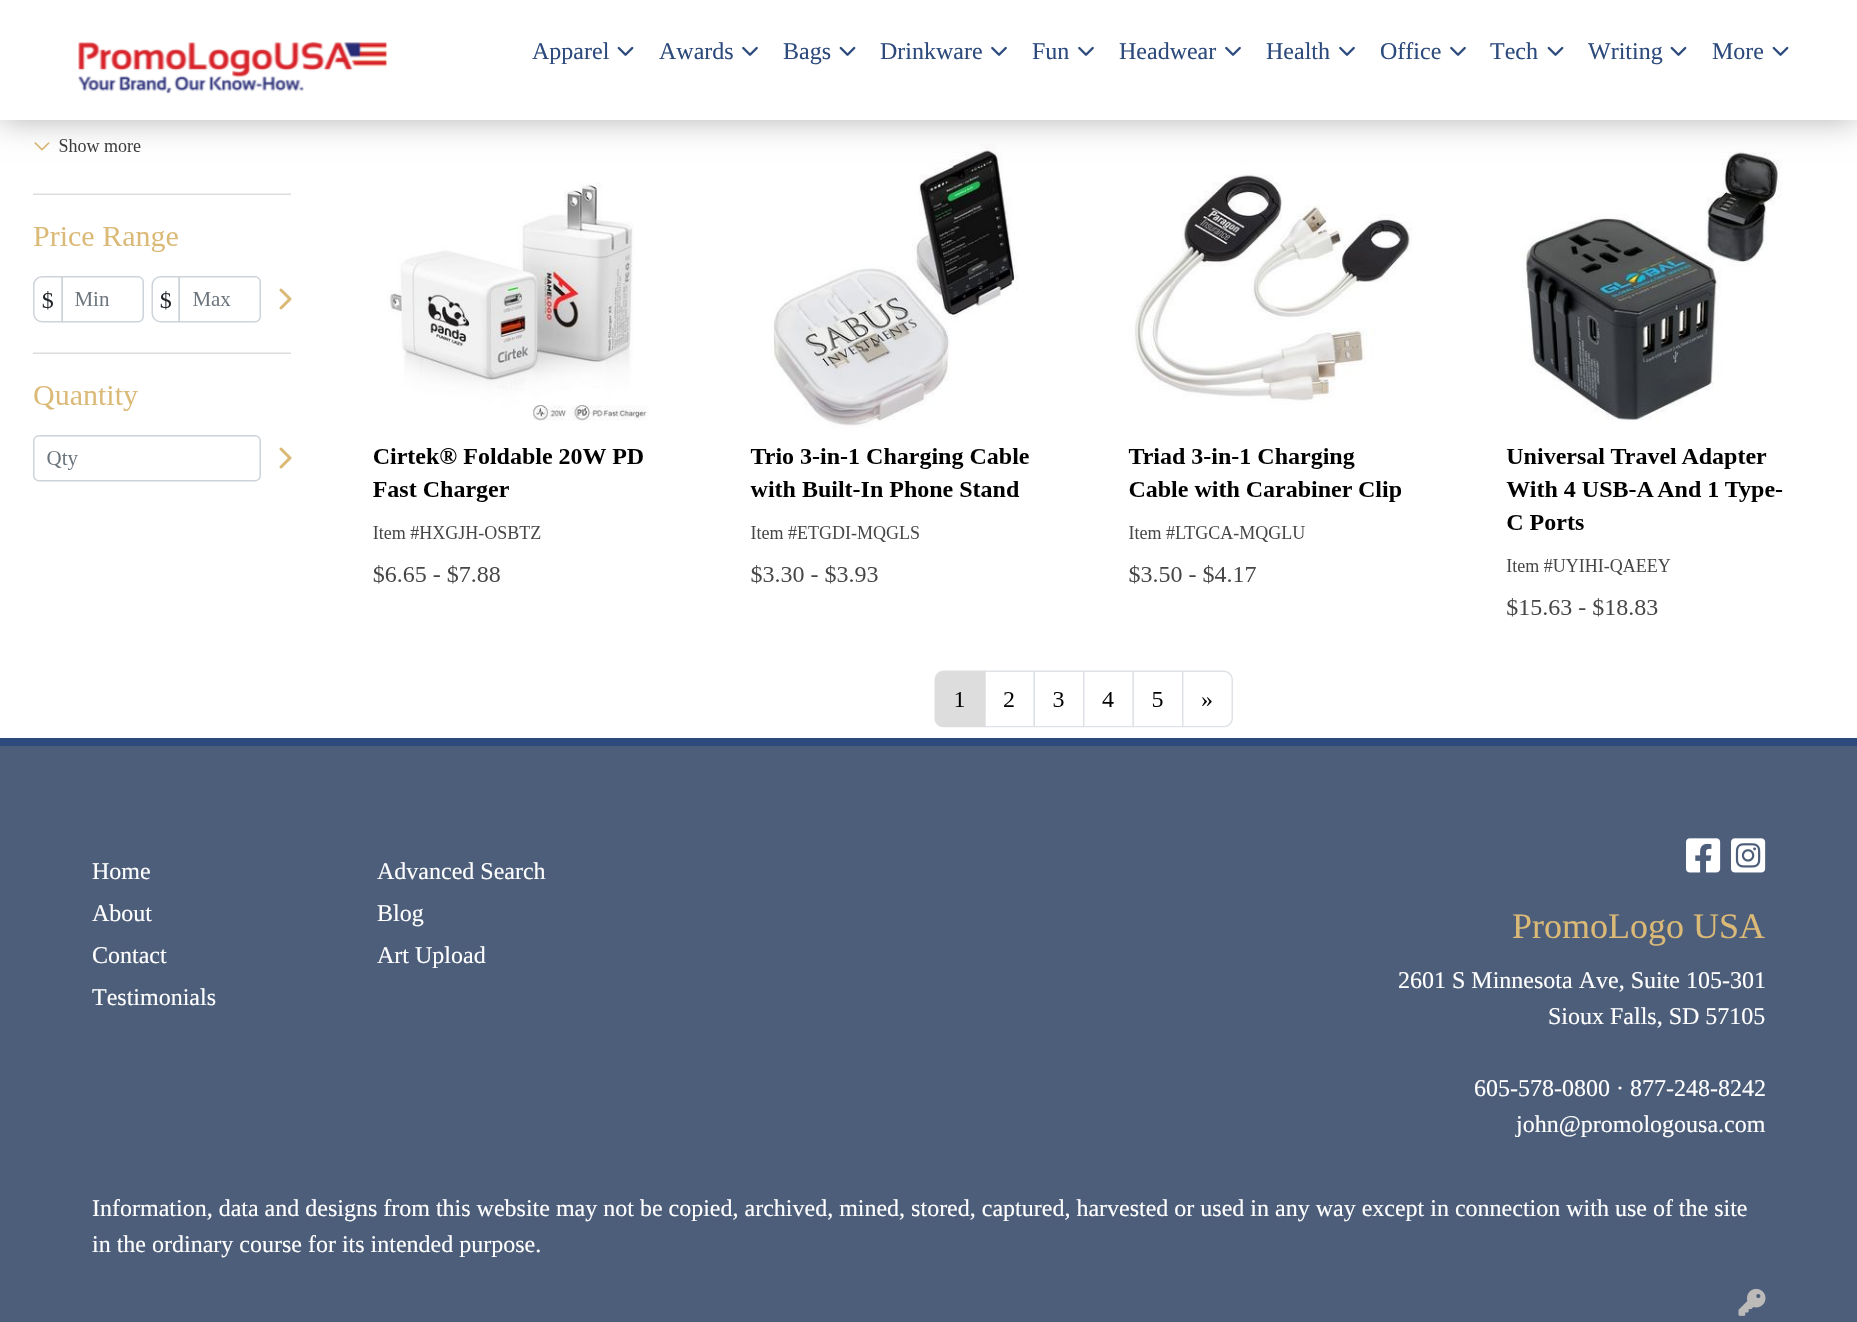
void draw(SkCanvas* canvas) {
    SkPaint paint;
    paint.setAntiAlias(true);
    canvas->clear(0xFFFFFFFF);
    canvas->drawImageRect(SkImages::DeferredFromEncodedData(SkData::MakeFromFileName("img4.png")), SkRect::MakeXYWH(33, 120, 1750, 608), SkSamplingOptions());
    paint.setColor(0x4D000000);
    paint.setMaskFilter(SkMaskFilter::MakeBlur(kNormal_SkBlurStyle, 15));
    canvas->drawRect(SkRect::MakeXYWH(0, 0, 1857, 120), paint);
    paint.setMaskFilter(nullptr);
    paint.setColor(0xFFFFFFFF);
    canvas->drawRect(SkRect::MakeXYWH(0, 0, 1857, 120), paint);
    canvas->drawImageRect(SkImages::DeferredFromEncodedData(SkData::MakeFromFileName("img1.png")), SkRect::MakeXYWH(78, 41, 310, 53), SkSamplingOptions());
    SkFont font1(fontMgr->matchFamilyStyle("Liberation Serif", SkFontStyle::Normal()), 24);
    font1.setSubpixel(true);
    paint.setColor(0xFF2C4A7C);
    canvas->drawString("Apparel", 532, 59, font1, paint);
    canvas->drawImageRect(SkImages::DeferredFromEncodedData(SkData::MakeFromFileName("img2.png")), SkRect::MakeXYWH(617, 46, 17, 10), SkSamplingOptions());
    canvas->drawString("Awards", 659, 59, font1, paint);
    canvas->drawImageRect(SkImages::DeferredFromEncodedData(SkData::MakeFromFileName("img3.png")), SkRect::MakeXYWH(742, 46, 16, 10), SkSamplingOptions());
    canvas->drawString("Bags", 783, 59, font1, paint);
    canvas->drawImageRect(SkImages::DeferredFromEncodedData(SkData::MakeFromFileName("img2.png")), SkRect::MakeXYWH(839, 46, 17, 10), SkSamplingOptions());
    canvas->drawString("Drinkware", 880, 59, font1, paint);
    canvas->drawImageRect(SkImages::DeferredFromEncodedData(SkData::MakeFromFileName("img3.png")), SkRect::MakeXYWH(991, 46, 16, 10), SkSamplingOptions());
    canvas->drawString("Fun", 1032, 59, font1, paint);
    canvas->drawImageRect(SkImages::DeferredFromEncodedData(SkData::MakeFromFileName("img3.png")), SkRect::MakeXYWH(1078, 46, 16, 10), SkSamplingOptions());
    canvas->drawString("Headwear", 1119, 59, font1, paint);
    canvas->drawImageRect(SkImages::DeferredFromEncodedData(SkData::MakeFromFileName("img3.png")), SkRect::MakeXYWH(1225, 46, 16, 10), SkSamplingOptions());
    canvas->drawString("Health", 1266, 59, font1, paint);
    canvas->drawImageRect(SkImages::DeferredFromEncodedData(SkData::MakeFromFileName("img3.png")), SkRect::MakeXYWH(1339, 46, 16, 10), SkSamplingOptions());
    canvas->drawString("Office", 1380, 59, font1, paint);
    canvas->drawImageRect(SkImages::DeferredFromEncodedData(SkData::MakeFromFileName("img3.png")), SkRect::MakeXYWH(1450, 46, 16, 10), SkSamplingOptions());
    canvas->drawString("Tech", 1490, 59, font1, paint);
    canvas->drawImageRect(SkImages::DeferredFromEncodedData(SkData::MakeFromFileName("img2.png")), SkRect::MakeXYWH(1547, 46, 17, 10), SkSamplingOptions());
    canvas->drawString("Writing", 1588, 59, font1, paint);
    canvas->drawImageRect(SkImages::DeferredFromEncodedData(SkData::MakeFromFileName("img2.png")), SkRect::MakeXYWH(1670, 46, 17, 10), SkSamplingOptions());
    canvas->drawString("More", 1712, 59, font1, paint);
    canvas->drawImageRect(SkImages::DeferredFromEncodedData(SkData::MakeFromFileName("img2.png")), SkRect::MakeXYWH(1772, 46, 17, 10), SkSamplingOptions());
    canvas->drawRect(SkRect::MakeXYWH(0, 738, 1857, 8), paint);
    paint.setColor(0xFF4D5E7A);
    canvas->drawRect(SkRect::MakeXYWH(0, 746, 1857, 576), paint);
    paint.setColor(0xFFFFFFFF);
    canvas->drawString("Home", 92, 879, font1, paint);
    canvas->drawString("About", 92, 921, font1, paint);
    canvas->drawString("Contact", 92, 963, font1, paint);
    canvas->drawString("Testimonials", 92, 1005, font1, paint);
    canvas->drawString("Advanced Search", 377, 879, font1, paint);
    canvas->drawString("Blog", 377, 921, font1, paint);
    canvas->drawString("Art Upload", 377, 963, font1, paint);
    canvas->drawImageRect(SkImages::DeferredFromEncodedData(SkData::MakeFromFileName("img5.png")), SkRect::MakeXYWH(1686, 838, 35, 35), SkSamplingOptions());
    canvas->drawImageRect(SkImages::DeferredFromEncodedData(SkData::MakeFromFileName("img6.png")), SkRect::MakeXYWH(1731, 838, 35, 35), SkSamplingOptions());
    SkFont font2(fontMgr->matchFamilyStyle("Liberation Serif", SkFontStyle::Normal()), 36);
    font2.setSubpixel(true);
    paint.setColor(0xFFDBB977);
    canvas->drawString("PromoLogo USA", 1512, 938, font2, paint);
    paint.setColor(0xFFFFFFFF);
    canvas->drawString("2601 S Minnesota Ave, Suite 105-301", 1398, 988, font1, paint);
    canvas->drawString("Sioux Falls, SD 57105", 1548, 1024, font1, paint);
    canvas->drawString("605-578-0800 · 877-248-8242", 1474, 1096, font1, paint);
    canvas->drawString("john@promologousa.com", 1516, 1132, font1, paint);
    canvas->drawString("Information, data and designs from this website may not be copied, archived, mined, stored, captured, harvested or used in any way except in connection with use of the site", 92, 1216, font1, paint);
    canvas->drawString("in the ordinary course for its intended purpose.", 92, 1252, font1, paint);
    canvas->drawImageRect(SkImages::DeferredFromEncodedData(SkData::MakeFromFileName("img7.png")), SkRect::MakeXYWH(1738, 1288, 28, 28), SkSamplingOptions());
}
